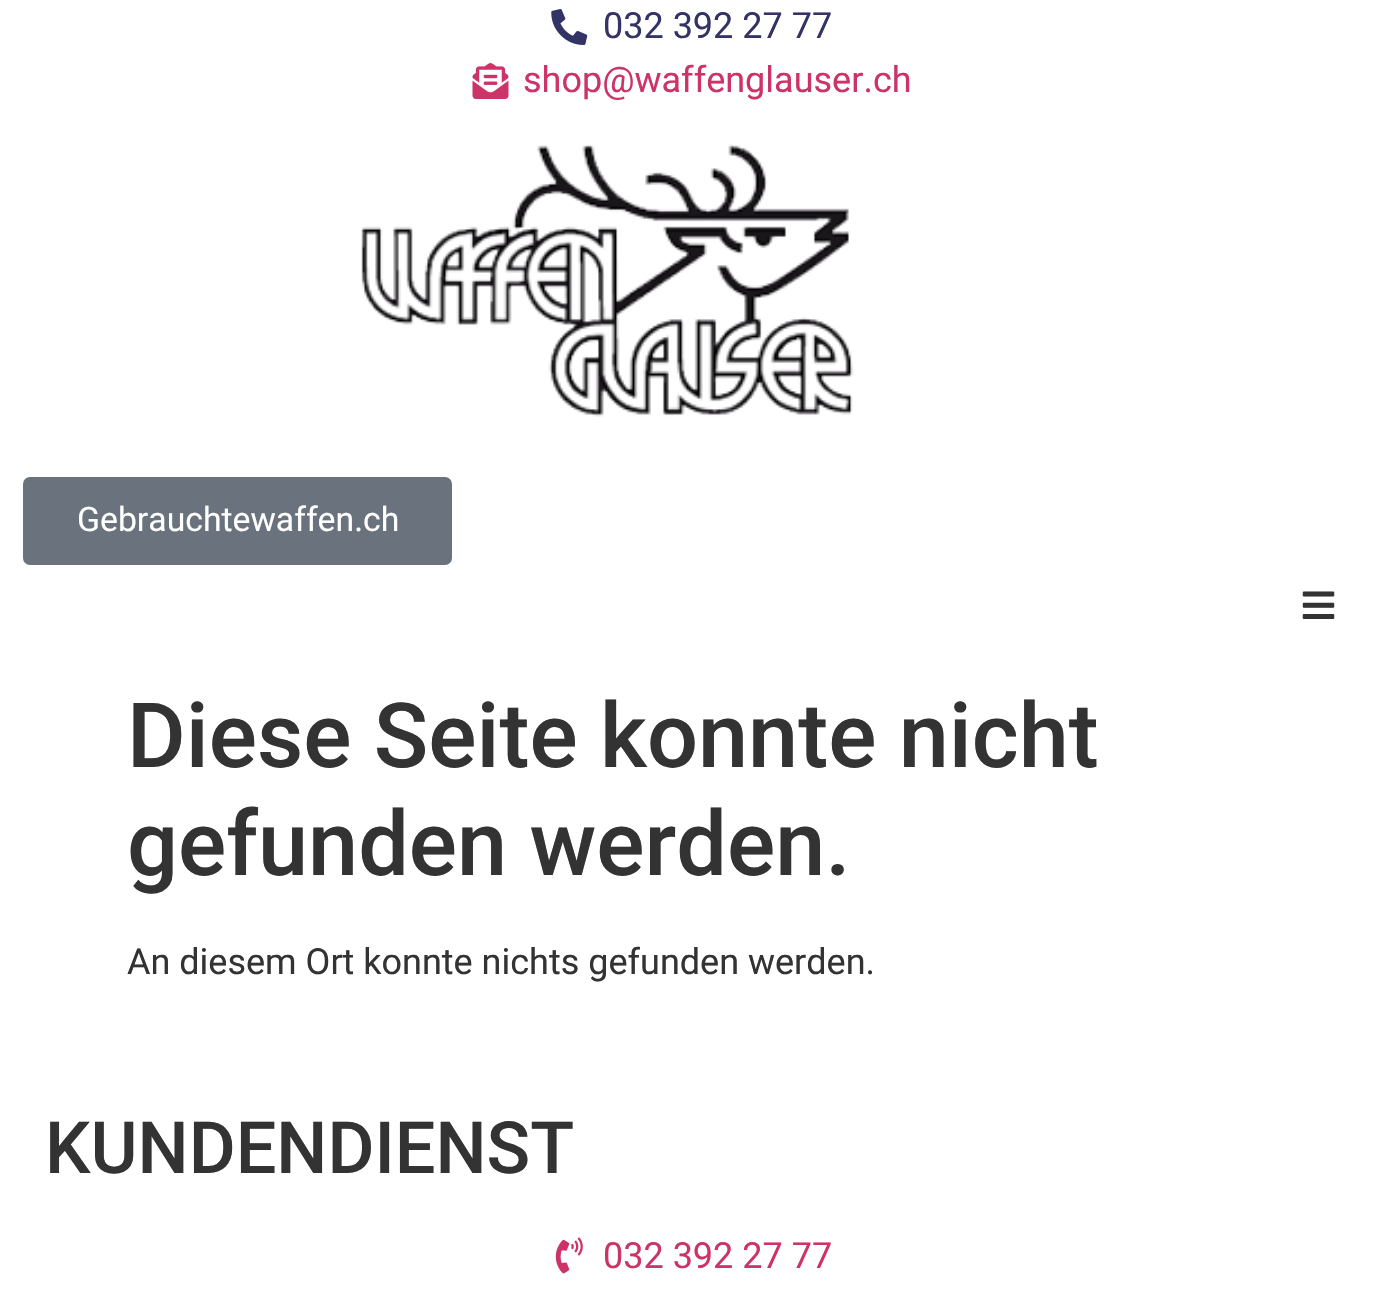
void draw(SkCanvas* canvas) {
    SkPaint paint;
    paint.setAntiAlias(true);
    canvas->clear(0xFFFFFFFF);
    canvas->drawImageRect(SkImages::DeferredFromEncodedData(SkData::MakeFromFileName("img1.png")), SkRect::MakeXYWH(551, 9, 37, 36), SkSamplingOptions());
    SkFont font1(fontMgr->matchFamilyStyle("Roboto", SkFontStyle::Normal()), 36);
    font1.setSubpixel(true);
    paint.setColor(0xFF333366);
    canvas->drawString("032 392 27 77", 603, 38, font1, paint);
    canvas->drawImageRect(SkImages::DeferredFromEncodedData(SkData::MakeFromFileName("img2.png")), SkRect::MakeXYWH(472, 63, 37, 36), SkSamplingOptions());
    paint.setColor(0xFFCC3366);
    canvas->drawString("shop@waffenglauser.ch", 523, 92, font1, paint);
    canvas->drawImageRect(SkImages::DeferredFromEncodedData(SkData::MakeFromFileName("img3.png")), SkRect::MakeXYWH(361, 144, 493, 273), SkSamplingOptions());
    paint.setColor(0xFF69727D);
    canvas->drawRoundRect(SkRect::MakeXYWH(23, 477, 429, 88), 7, 7, paint);
    SkFont font2(fontMgr->matchFamilyStyle("Roboto", SkFontStyle::Normal()), 33.75f);
    font2.setSubpixel(true);
    paint.setColor(0xFFFFFFFF);
    canvas->drawString("Gebrauchtewaffen.ch", 77, 531, font2, paint);
    canvas->drawImageRect(SkImages::DeferredFromEncodedData(SkData::MakeFromFileName("img4.png")), SkRect::MakeXYWH(1302, 591, 33, 28), SkSamplingOptions());
    SkFont font3(fontMgr->matchFamilyStyle("Roboto", SkFontStyle(500, SkFontStyle::kNormal_Width, SkFontStyle::kUpright_Slant)), 90);
    font3.setSubpixel(true);
    paint.setColor(0xFF333333);
    canvas->drawString("Diese Seite konnte nicht", 127, 767, font3, paint);
    canvas->drawString("gefunden werden.", 127, 875, font3, paint);
    canvas->drawString("An diesem Ort konnte nichts gefunden werden.", 127, 974, font1, paint);
    SkFont font4(fontMgr->matchFamilyStyle("Roboto", SkFontStyle(500, SkFontStyle::kNormal_Width, SkFontStyle::kUpright_Slant)), 72);
    font4.setSubpixel(true);
    canvas->drawString("KUNDENDIENST", 45, 1173, font4, paint);
    canvas->drawImageRect(SkImages::DeferredFromEncodedData(SkData::MakeFromFileName("img5.png")), SkRect::MakeXYWH(555, 1237, 28, 37), SkSamplingOptions());
    paint.setColor(0xFFCC3366);
    canvas->drawString("032 392 27 77", 603, 1268, font1, paint);
}
